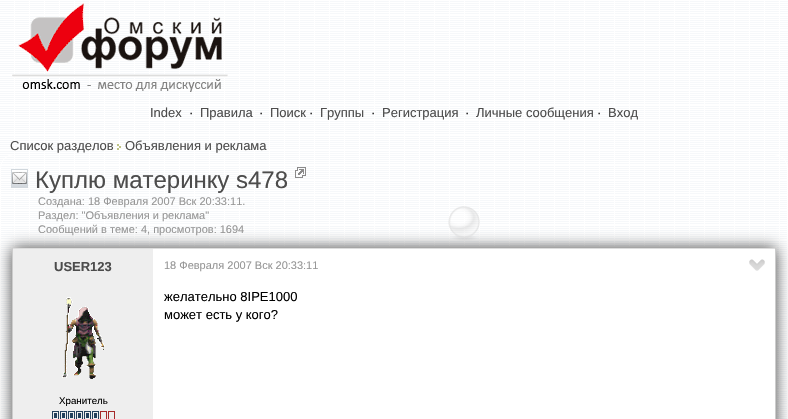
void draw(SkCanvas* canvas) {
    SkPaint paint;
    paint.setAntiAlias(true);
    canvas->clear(0xFFFFFFFF);
    canvas->drawImageRect(SkImages::DeferredFromEncodedData(SkData::MakeFromFileName("img1.png")), SkRect::MakeXYWH(0, 0, 788, 419), SkSamplingOptions());
    canvas->drawImageRect(SkImages::DeferredFromEncodedData(SkData::MakeFromFileName("img2.png")), SkRect::MakeXYWH(12, 3, 216, 89), SkSamplingOptions());
    SkFont font1(fontMgr->matchFamilyStyle("Liberation Sans", SkFontStyle::Normal()), 13);
    font1.setSubpixel(true);
    paint.setColor(0xFF4C4C4C);
    canvas->drawString("Index", 150, 117, font1, paint);
    paint.setColor(0xFF141414);
    canvas->drawString("·", 189, 117, font1, paint);
    paint.setColor(0xFF4C4C4C);
    canvas->drawString("Правила", 200, 117, font1, paint);
    paint.setColor(0xFF141414);
    canvas->drawString("·", 259, 117, font1, paint);
    paint.setColor(0xFF4C4C4C);
    canvas->drawString("Поиск", 270, 117, font1, paint);
    paint.setColor(0xFF141414);
    canvas->drawString("·", 309, 117, font1, paint);
    paint.setColor(0xFF4C4C4C);
    canvas->drawString("Группы", 320, 117, font1, paint);
    paint.setColor(0xFF141414);
    canvas->drawString("·", 371, 117, font1, paint);
    paint.setColor(0xFF4C4C4C);
    canvas->drawString("Регистрация", 382, 117, font1, paint);
    paint.setColor(0xFF141414);
    canvas->drawString("·", 465, 117, font1, paint);
    paint.setColor(0xFF4C4C4C);
    canvas->drawString("Личные сообщения", 476, 117, font1, paint);
    paint.setColor(0xFF141414);
    canvas->drawString("·", 597, 117, font1, paint);
    paint.setColor(0xFF4C4C4C);
    canvas->drawString("Вход", 608, 117, font1, paint);
    canvas->drawString("Список разделов", 10, 150, font1, paint);
    canvas->drawImageRect(SkImages::DeferredFromEncodedData(SkData::MakeFromFileName("img3.png")), SkRect::MakeXYWH(117, 144, 4, 6), SkSamplingOptions());
    canvas->drawString("Объявления и реклама", 125, 150, font1, paint);
    paint.setStyle(SkPaint::kStroke_Style);
    paint.setStrokeWidth(1);
    paint.setColor(0xFFFFFFFF);
    canvas->drawRoundRect(SkRect::MakeXYWH(0.5f, 154.5f, 787, 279), 13.5f, 13.5f, paint);
    canvas->drawImageRect(SkImages::DeferredFromEncodedData(SkData::MakeFromFileName("img4.png")), SkRect::MakeXYWH(11, 169, 17, 19), SkSamplingOptions());
    SkFont font2(fontMgr->matchFamilyStyle("Liberation Sans", SkFontStyle::Normal()), 24);
    font2.setSubpixel(true);
    paint.setStyle(SkPaint::kFill_Style);
    paint.setColor(0xFF4C4C4C);
    canvas->drawString("Куплю материнку s478", 35, 188, font2, paint);
    canvas->drawImageRect(SkImages::DeferredFromEncodedData(SkData::MakeFromFileName("img5.png")), SkRect::MakeXYWH(295, 167, 11, 11), SkSamplingOptions());
    SkFont font3(fontMgr->matchFamilyStyle("Liberation Sans", SkFontStyle::Normal()), 11);
    font3.setSubpixel(true);
    paint.setColor(0xFF969696);
    canvas->drawString("Создана: 18 Февраля 2007 Вск 20:33:11.", 38, 205, font3, paint);
    canvas->drawString("Раздел: \"Объявления и реклама\"", 38, 219, font3, paint);
    canvas->drawString("Сообщений в теме: 4, просмотров: 1694", 38, 233, font3, paint);
    canvas->drawImageRect(SkImages::DeferredFromEncodedData(SkData::MakeFromFileName("img6.png")), SkRect::MakeXYWH(448, 206, 32, 35), SkSamplingOptions());
    paint.setStyle(SkPaint::kStroke_Style);
    paint.setColor(0xFFFFFFFF);
    canvas->drawRect(SkRect::MakeXYWH(11.5f, 247.5f, 765, 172), paint);
    paint.setStyle(SkPaint::kFill_Style);
    paint.setColor(0xFF444444);
    paint.setMaskFilter(SkMaskFilter::MakeBlur(kNormal_SkBlurStyle, 7.5f));
    canvas->drawRect(SkRect::MakeXYWH(12, 248, 764, 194), paint);
    paint.setMaskFilter(nullptr);
    paint.setColor(0xFFFFFFFF);
    canvas->drawRect(SkRect::MakeXYWH(153, 249, 622, 170), paint);
    paint.setColor(0xFFDDDDDD);
    canvas->drawRect(SkRect::MakeXYWH(12, 248, 764, 1), paint);
    paint.setColor(0xFFCCCCCC);
    canvas->drawRect(SkRect::MakeXYWH(775, 248, 1, 171), paint);
    canvas->drawRect(SkRect::MakeXYWH(12, 248, 1, 171), paint);
    paint.setColor(0xFFEEEEEE);
    canvas->drawRect(SkRect::MakeXYWH(13, 249, 140, 170), paint);
    SkFont font4(fontMgr->matchFamilyStyle("Liberation Sans", SkFontStyle::Bold()), 13);
    font4.setSubpixel(true);
    paint.setColor(0xFF4C4C4C);
    canvas->drawString("USER123", 54, 271, font4, paint);
    canvas->drawImageRect(SkImages::DeferredFromEncodedData(SkData::MakeFromFileName("img7.png")), SkRect::MakeXYWH(62, 297, 43, 82), SkSamplingOptions());
    SkFont font5(fontMgr->matchFamilyStyle("Liberation Sans", SkFontStyle::Normal()), 9.75f);
    font5.setSubpixel(true);
    paint.setColor(0xFF000000);
    canvas->drawString("Хранитель", 59, 404, font5, paint);
    canvas->drawImageRect(SkImages::DeferredFromEncodedData(SkData::MakeFromFileName("img8.png")), SkRect::MakeXYWH(52, 411, 63, 8), SkSamplingOptions());
    paint.setColor(0xFF969696);
    canvas->drawString("18 Февраля 2007 Вск 20:33:11", 164, 269, font3, paint);
    canvas->drawImageRect(SkImages::DeferredFromEncodedData(SkData::MakeFromFileName("img9.png")), SkRect::MakeXYWH(749, 259, 16, 12), SkSamplingOptions());
    paint.setColor(0xFF000000);
    canvas->drawString("желательно 8IPE1000", 164, 301, font1, paint);
    canvas->drawString("может есть у кого?", 164, 319, font1, paint);
}
